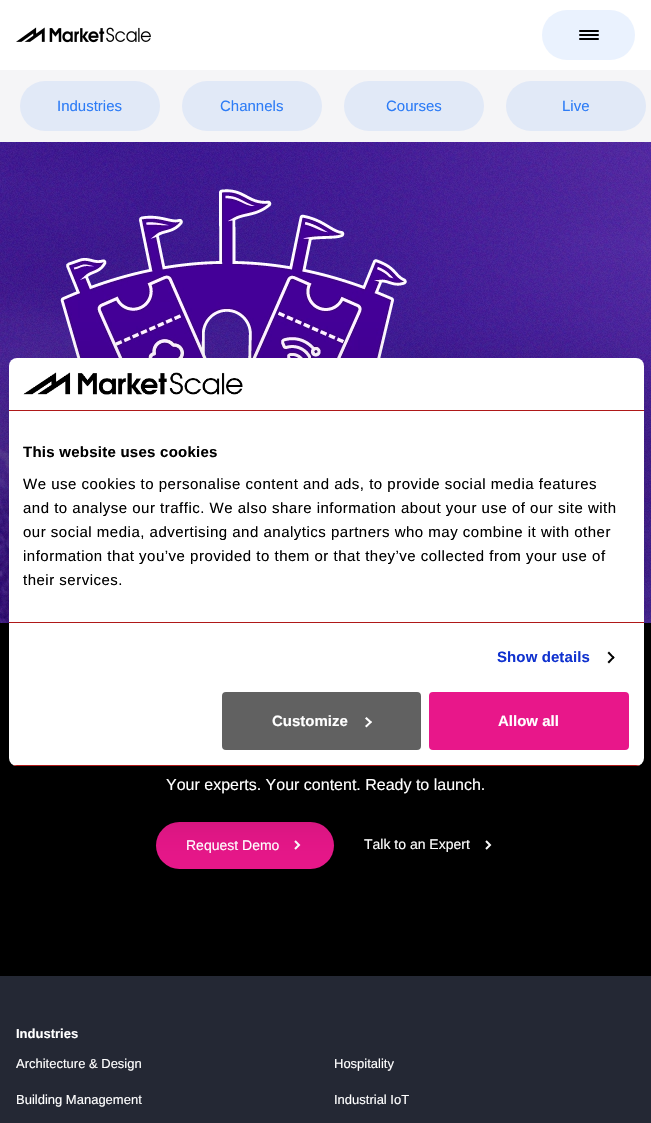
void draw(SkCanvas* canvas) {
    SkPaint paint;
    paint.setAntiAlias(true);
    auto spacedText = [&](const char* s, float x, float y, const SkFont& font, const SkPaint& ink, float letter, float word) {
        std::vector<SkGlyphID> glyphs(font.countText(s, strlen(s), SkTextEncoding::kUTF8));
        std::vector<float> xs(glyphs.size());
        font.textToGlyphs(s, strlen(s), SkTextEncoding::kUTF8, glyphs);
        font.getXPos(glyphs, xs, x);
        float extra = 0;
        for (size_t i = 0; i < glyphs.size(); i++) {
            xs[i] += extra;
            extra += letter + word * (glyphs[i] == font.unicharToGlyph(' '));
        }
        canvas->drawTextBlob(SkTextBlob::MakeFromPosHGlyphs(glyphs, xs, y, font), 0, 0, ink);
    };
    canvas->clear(0xFFFFFFFF);
    canvas->drawImageRect(SkImages::DeferredFromEncodedData(SkData::MakeFromFileName("img1.png")), SkRect::MakeXYWH(16, 27, 135, 16), SkSamplingOptions());
    paint.setColor(0xFFEAF2FE);
    canvas->drawRoundRect(SkRect::MakeXYWH(542, 10, 93, 50), 25, 25, paint);
    paint.setColor(0xFF000000);
    canvas->drawRoundRect(SkRect::MakeXYWH(579, 30, 20, 2), 1, 1, paint);
    canvas->drawRoundRect(SkRect::MakeXYWH(579, 34, 20, 2), 1, 1, paint);
    canvas->drawRoundRect(SkRect::MakeXYWH(579, 38, 20, 2), 1, 1, paint);
    paint.setColor(0xFFF5F5F7);
    canvas->drawRect(SkRect::MakeXYWH(0, 70, 651, 72), paint);
    paint.setColor(0xFFE1E9F7);
    canvas->drawRoundRect(SkRect::MakeXYWH(20, 81, 140, 50), 25, 25, paint);
    SkFont font1(fontMgr->matchFamilyStyle("Liberation Sans", SkFontStyle::Normal()), 15);
    font1.setSubpixel(true);
    paint.setColor(0xFF2D7CF6);
    canvas->drawString("Industries", 57, 111, font1, paint);
    paint.setColor(0xFFE1E9F7);
    canvas->drawRoundRect(SkRect::MakeXYWH(182, 81, 140, 50), 25, 25, paint);
    paint.setColor(0xFF2D7CF6);
    canvas->drawString("Channels", 220, 111, font1, paint);
    paint.setColor(0xFFE1E9F7);
    canvas->drawRoundRect(SkRect::MakeXYWH(344, 81, 140, 50), 25, 25, paint);
    paint.setColor(0xFF2D7CF6);
    canvas->drawString("Courses", 386, 111, font1, paint);
    paint.setColor(0xFFE1E9F7);
    canvas->drawRoundRect(SkRect::MakeXYWH(506, 81, 140, 50), 25, 25, paint);
    paint.setColor(0xFF2D7CF6);
    canvas->drawString("Live", 562, 111, font1, paint);
    canvas->drawImageRect(SkImages::DeferredFromEncodedData(SkData::MakeFromFileName("img2.png")), SkRect::MakeXYWH(0, 142, 651, 481), SkSamplingOptions());
    canvas->drawImageRect(SkImages::DeferredFromEncodedData(SkData::MakeFromFileName("img3.png")), SkRect::MakeXYWH(60, 189, 347, 169), SkSamplingOptions());
    paint.setColor(0xFF000000);
    canvas->drawRect(SkRect::MakeXYWH(0, 623, 651, 353), paint);
    paint.setColor(0xFFE8178A);
    canvas->drawRoundRect(SkRect::MakeXYWH(156, 822, 178, 47), 23.5f, 23.5f, paint);
    paint.setStyle(SkPaint::kStroke_Style);
    paint.setStrokeWidth(2);
    paint.setColor(0xFFFFFFFF);
    canvas->drawPath(SkPathBuilder().moveTo(295, 841).lineTo(299, 845).lineTo(295, 849).detach(), paint);
    canvas->drawPath(SkPathBuilder().moveTo(486, 841).lineTo(490, 845).lineTo(486, 849).detach(), paint);
    paint.setStyle(SkPaint::kFill_Style);
    paint.setColor(0x4D000000);
    paint.setMaskFilter(SkMaskFilter::MakeBlur(kNormal_SkBlurStyle, 34));
    canvas->drawRoundRect(SkRect::MakeXYWH(9, 390, 635, 408), 8, 8, paint);
    paint.setMaskFilter(nullptr);
    paint.setColor(0xFFFFFFFF);
    canvas->drawRoundRect(SkRect::MakeXYWH(9, 358, 635, 408), 8, 8, paint);
    paint.setColor(0xFFAF1818);
    canvas->drawRect(SkRect::MakeXYWH(9, 410, 635, 1), paint);
    canvas->drawImageRect(SkImages::DeferredFromEncodedData(SkData::MakeFromFileName("img4.png")), SkRect::MakeXYWH(23, 372, 220, 23), SkSamplingOptions());
    canvas->drawRect(SkRect::MakeXYWH(9, 622, 635, 1), paint);
    SkFont font2(fontMgr->matchFamilyStyle("Liberation Sans", SkFontStyle::Bold()), 15);
    font2.setSubpixel(true);
    paint.setColor(0xFF000000);
    spacedText("This website uses cookies", 23, 457, font2, paint, 0.25f, 0);
    spacedText("We use cookies to personalise content and ads, to provide social media features", 23, 489, font1, paint, 0.5f, 0);
    spacedText("and to analyse our traffic. We also share information about your use of our site with", 23, 513, font1, paint, 0.5f, 0);
    spacedText("our social media, advertising and analytics partners who may combine it with other", 23, 537, font1, paint, 0.5f, 0);
    spacedText("information that you’ve provided to them or that they’ve collected from your use of", 23, 561, font1, paint, 0.5f, 0);
    spacedText("their services.", 23, 585, font1, paint, 0.5f, 0);
    paint.setColor(0xFF1032CF);
    spacedText("Show details", 497, 662, font2, paint, 0.1f, 0);
    paint.setColor(0xFF000000);
    canvas->drawPath(SkPathBuilder().moveTo(609, 651.5f).lineTo(614.5f, 657.5f).lineTo(613.5f, 659).lineTo(607.5f, 653).close().detach(), paint);
    canvas->drawPath(SkPathBuilder().moveTo(613.5f, 656).lineTo(614.5f, 657.5f).lineTo(609, 663.5f).lineTo(607.5f, 662).close().detach(), paint);
    canvas->save();
    canvas->clipPath(SkPathBuilder().moveTo(17, 358).lineTo(636, 358).cubicTo(640.5f, 358, 644, 361.5f, 644, 366).lineTo(644, 758).cubicTo(644, 762.5f, 640.5f, 766, 636, 766).lineTo(17, 766).cubicTo(12.5f, 766, 9, 762.5f, 9, 758).lineTo(9, 366).cubicTo(9, 361.5f, 12.5f, 358, 17, 358).close().detach(), true);
    paint.setColor(0xFFAF1818);
    canvas->drawRect(SkRect::MakeXYWH(9, 765, 635, 1), paint);
    canvas->restore();
    paint.setColor(0xFF616161);
    canvas->drawRoundRect(SkRect::MakeXYWH(223, 693, 197, 56), 3, 3, paint);
    paint.setStyle(SkPaint::kStroke_Style);
    canvas->drawRoundRect(SkRect::MakeXYWH(223, 693, 197, 56), 3, 3, paint);
    paint.setStyle(SkPaint::kFill_Style);
    paint.setColor(0xFFFFFFFF);
    canvas->drawString("Customize", 272, 726, font2, paint);
    canvas->drawPath(SkPathBuilder().moveTo(366.5f, 717).lineTo(372, 722).lineTo(370.5f, 723.5f).lineTo(365, 718.5f).close().detach(), paint);
    canvas->drawPath(SkPathBuilder().moveTo(370.5f, 721).lineTo(372, 722).lineTo(366.5f, 727.5f).lineTo(365, 726).close().detach(), paint);
    paint.setColor(0xFFE8178A);
    canvas->drawRoundRect(SkRect::MakeXYWH(430, 693, 198, 56), 3, 3, paint);
    paint.setStyle(SkPaint::kStroke_Style);
    canvas->drawRoundRect(SkRect::MakeXYWH(430, 693, 198, 56), 3, 3, paint);
    paint.setStyle(SkPaint::kFill_Style);
    paint.setColor(0xFFFFFFFF);
    canvas->drawString("Allow all", 498, 726, font2, paint);
    SkFont font3(fontMgr->matchFamilyStyle("Liberation Sans", SkFontStyle::Normal()), 16);
    font3.setSubpixel(true);
    canvas->drawString("Your experts. Your content. Ready to launch.", 166, 790, font3, paint);
    SkFont font4(fontMgr->matchFamilyStyle("Liberation Sans", SkFontStyle::Normal()), 14);
    font4.setSubpixel(true);
    canvas->drawString("Request Demo", 186, 850, font4, paint);
    canvas->drawString("Talk to an Expert", 364, 849, font4, paint);
    paint.setColor(0xFF242834);
    canvas->drawRect(SkRect::MakeXYWH(0, 976, 651, 147), paint);
    SkFont font5(fontMgr->matchFamilyStyle("Liberation Sans", SkFontStyle::Bold()), 13);
    font5.setSubpixel(true);
    paint.setColor(0xFFFFFFFF);
    canvas->drawString("Industries", 16, 1038, font5, paint);
    SkFont font6(fontMgr->matchFamilyStyle("Liberation Sans", SkFontStyle::Normal()), 13);
    font6.setSubpixel(true);
    canvas->drawString("Architecture & Design", 16, 1068, font6, paint);
    canvas->drawString("Hospitality", 334, 1068, font6, paint);
    canvas->drawString("Building Management", 16, 1104, font6, paint);
    canvas->drawString("Industrial IoT", 334, 1104, font6, paint);
}
